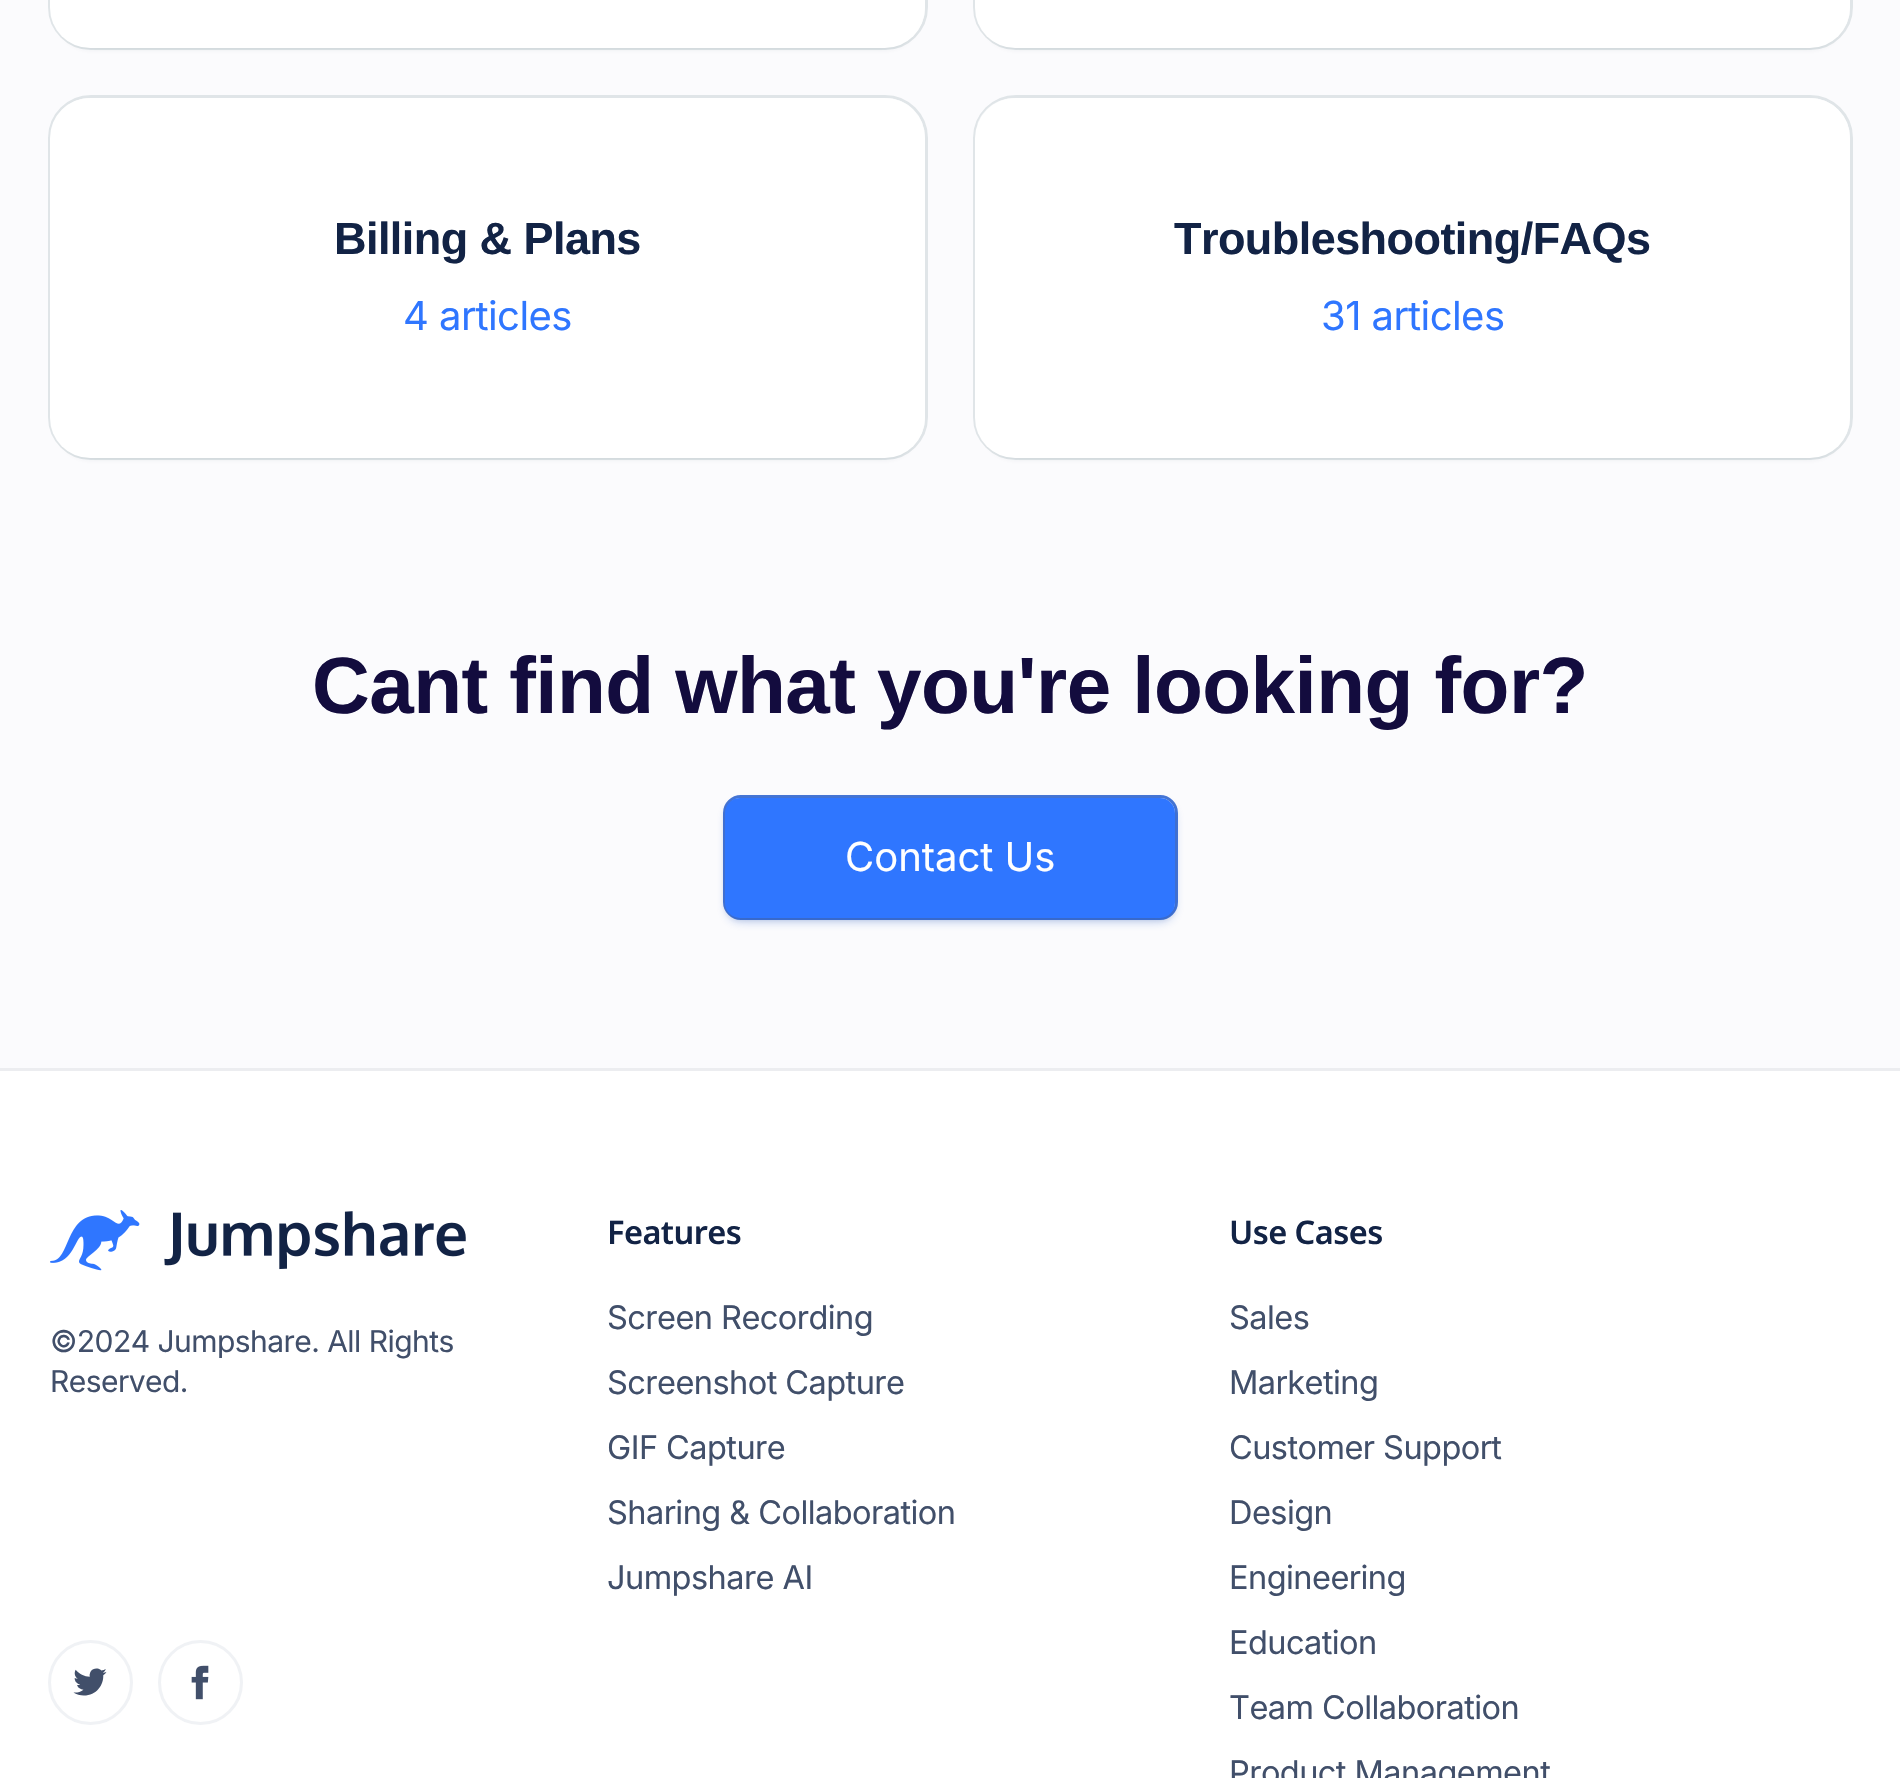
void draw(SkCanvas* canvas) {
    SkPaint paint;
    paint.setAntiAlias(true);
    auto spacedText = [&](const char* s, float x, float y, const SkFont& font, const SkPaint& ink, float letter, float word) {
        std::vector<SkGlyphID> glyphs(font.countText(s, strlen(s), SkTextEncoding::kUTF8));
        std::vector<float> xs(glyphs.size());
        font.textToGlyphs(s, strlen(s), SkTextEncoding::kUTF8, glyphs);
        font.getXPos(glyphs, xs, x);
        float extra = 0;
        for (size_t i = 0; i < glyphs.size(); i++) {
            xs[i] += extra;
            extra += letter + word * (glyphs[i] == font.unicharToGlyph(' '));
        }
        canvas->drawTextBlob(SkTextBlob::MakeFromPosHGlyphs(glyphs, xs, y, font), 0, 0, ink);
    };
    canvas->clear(0xFFFBFBFD);
    paint.setStyle(SkPaint::kStroke_Style);
    paint.setStrokeWidth(3);
    paint.setColor(0x1C0C353E);
    canvas->drawRoundRect(SkRect::MakeXYWH(49.5f, -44.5f, 877, 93), 41.5f, 41.5f, paint);
    paint.setStyle(SkPaint::kFill_Style);
    paint.setColor(0x400C353E);
    paint.setMaskFilter(SkMaskFilter::MakeBlur(kNormal_SkBlurStyle, 5));
    canvas->drawRoundRect(SkRect::MakeXYWH(63, -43, 850, 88), 28, 28, paint);
    paint.setMaskFilter(nullptr);
    paint.setColor(0xFFFFFFFF);
    canvas->drawRoundRect(SkRect::MakeXYWH(50, -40, 875, 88), 40, 40, paint);
    paint.setStyle(SkPaint::kStroke_Style);
    paint.setColor(0x1C0C353E);
    canvas->drawRoundRect(SkRect::MakeXYWH(974.5f, -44.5f, 877, 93), 41.5f, 41.5f, paint);
    paint.setStyle(SkPaint::kFill_Style);
    paint.setColor(0x400C353E);
    paint.setMaskFilter(SkMaskFilter::MakeBlur(kNormal_SkBlurStyle, 5));
    canvas->drawRoundRect(SkRect::MakeXYWH(988, -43, 850, 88), 28, 28, paint);
    paint.setMaskFilter(nullptr);
    paint.setColor(0xFFFFFFFF);
    canvas->drawRoundRect(SkRect::MakeXYWH(975, -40, 875, 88), 40, 40, paint);
    paint.setStyle(SkPaint::kStroke_Style);
    paint.setColor(0x1C0C353E);
    canvas->drawRoundRect(SkRect::MakeXYWH(49.5f, 96.5f, 877, 362), 41.5f, 41.5f, paint);
    paint.setStyle(SkPaint::kFill_Style);
    paint.setColor(0x400C353E);
    paint.setMaskFilter(SkMaskFilter::MakeBlur(kNormal_SkBlurStyle, 5));
    canvas->drawRoundRect(SkRect::MakeXYWH(63, 120, 850, 335), 28, 28, paint);
    paint.setMaskFilter(nullptr);
    paint.setColor(0xFFFFFFFF);
    canvas->drawRoundRect(SkRect::MakeXYWH(50, 98, 875, 360), 40, 40, paint);
    paint.setColor(0x75FFFFFF);
    canvas->drawPath(SkPathBuilder().moveTo(90, 102).lineTo(885, 102).cubicTo(901, 102, 916, 112, 923, 125).cubicTo(918, 109, 903, 98, 885, 98).lineTo(90, 98).cubicTo(71, 98, 55, 112, 51, 130).cubicTo(57, 114, 72, 102, 90, 102).close().detach(), paint);
    SkFont font1(fontMgr->matchFamilyStyle("Liberation Sans", SkFontStyle::Bold()), 45);
    font1.setSubpixel(true);
    paint.setColor(0xFF122345);
    spacedText("Billing & Plans", 334, 254, font1, paint, -0.55f, 0);
    SkFont font2(fontMgr->matchFamilyStyle("Inter", SkFontStyle::Normal()), 40);
    font2.setSubpixel(true);
    paint.setColor(0xFF2F76FF);
    spacedText("4 articles", 403, 330, font2, paint, -0.55f, 0);
    paint.setStyle(SkPaint::kStroke_Style);
    paint.setColor(0x1C0C353E);
    canvas->drawRoundRect(SkRect::MakeXYWH(974.5f, 96.5f, 877, 362), 41.5f, 41.5f, paint);
    paint.setStyle(SkPaint::kFill_Style);
    paint.setColor(0x400C353E);
    paint.setMaskFilter(SkMaskFilter::MakeBlur(kNormal_SkBlurStyle, 5));
    canvas->drawRoundRect(SkRect::MakeXYWH(988, 120, 850, 335), 28, 28, paint);
    paint.setMaskFilter(nullptr);
    paint.setColor(0xFFFFFFFF);
    canvas->drawRoundRect(SkRect::MakeXYWH(975, 98, 875, 360), 40, 40, paint);
    paint.setColor(0x75FFFFFF);
    canvas->drawPath(SkPathBuilder().moveTo(1015, 102).lineTo(1810, 102).cubicTo(1828, 102, 1843, 114, 1849, 130).cubicTo(1845, 112, 1829, 98, 1810, 98).lineTo(1015, 98).cubicTo(997, 98, 982, 109, 977, 125).cubicTo(984, 112, 999, 102, 1015, 102).close().detach(), paint);
    paint.setColor(0xFF122345);
    spacedText("Troubleshooting/FAQs", 1174, 254, font1, paint, -0.55f, 0);
    paint.setColor(0xFF2F76FF);
    spacedText("31 articles", 1321, 330, font2, paint, -0.55f, 0);
    SkFont font3(fontMgr->matchFamilyStyle("Liberation Sans", SkFontStyle::Bold()), 80);
    font3.setSubpixel(true);
    paint.setColor(0xFF130C3E);
    spacedText("Cant find what you're looking for?", 312, 713, font3, paint, -0.55f, 0);
    paint.setColor(0x661653CA);
    paint.setMaskFilter(SkMaskFilter::MakeBlur(kNormal_SkBlurStyle, 5.5f));
    canvas->drawRoundRect(SkRect::MakeXYWH(728, 805, 445, 115), 13, 13, paint);
    paint.setMaskFilter(nullptr);
    paint.setStyle(SkPaint::kStroke_Style);
    paint.setColor(0xCC1653CA);
    canvas->drawRoundRect(SkRect::MakeXYWH(724.5f, 796.5f, 452, 122), 16.5f, 16.5f, paint);
    paint.setStyle(SkPaint::kFill_Style);
    paint.setColor(0x14122345);
    paint.setMaskFilter(SkMaskFilter::MakeBlur(kNormal_SkBlurStyle, 2.5f));
    canvas->drawRoundRect(SkRect::MakeXYWH(725, 800, 450, 120), 15, 15, paint);
    paint.setMaskFilter(nullptr);
    paint.setColor(0xFF2F76FF);
    canvas->drawRoundRect(SkRect::MakeXYWH(725, 798, 450, 120), 15, 15, paint);
    paint.setColor(0xFFFFFFFF);
    canvas->drawString("Contact Us", 845, 871, font2, paint);
    canvas->drawRect(SkRect::MakeXYWH(0, 1071, 1900, 707), paint);
    paint.setColor(0xFFECEDF0);
    canvas->drawRect(SkRect::MakeXYWH(0, 1068, 1900, 3), paint);
    canvas->drawImageRect(SkImages::DeferredFromEncodedData(SkData::MakeFromFileName("img1.png")), SkRect::MakeXYWH(50, 1210, 416, 61), SkSamplingOptions());
    SkFont font4(fontMgr->matchFamilyStyle("Inter", SkFontStyle::Normal()), 30);
    font4.setSubpixel(true);
    paint.setColor(0xFF414F6A);
    spacedText("©2024 Jumpshare. All Rights", 50, 1352, font4, paint, -0.55f, 0);
    spacedText("Reserved.", 50, 1392, font4, paint, -0.55f, 0);
    paint.setStyle(SkPaint::kStroke_Style);
    paint.setColor(0xFFF0F2F5);
    canvas->drawCircle(90.5f, 1682.5f, 41, paint);
    canvas->drawImageRect(SkImages::DeferredFromEncodedData(SkData::MakeFromFileName("img2.png")), SkRect::MakeXYWH(73, 1668, 34, 28), SkSamplingOptions());
    canvas->drawCircle(200.5f, 1682.5f, 41, paint);
    canvas->drawImageRect(SkImages::DeferredFromEncodedData(SkData::MakeFromFileName("img3.png")), SkRect::MakeXYWH(191, 1665, 18, 35), SkSamplingOptions());
    SkFont font5(fontMgr->matchFamilyStyle("Noto Sans", SkFontStyle(600, SkFontStyle::kNormal_Width, SkFontStyle::kUpright_Slant)), 32.5f);
    font5.setSubpixel(true);
    paint.setStyle(SkPaint::kFill_Style);
    paint.setColor(0xFF122345);
    spacedText("Features", 607, 1244, font5, paint, -0.55f, 0);
    SkFont font6(fontMgr->matchFamilyStyle("Inter", SkFontStyle::Normal()), 32.5f);
    font6.setSubpixel(true);
    paint.setColor(0xFF414F6A);
    spacedText("Screen Recording", 607, 1329, font6, paint, -0.55f, 0);
    spacedText("Screenshot Capture", 607, 1394, font6, paint, -0.55f, 0);
    spacedText("GIF Capture", 607, 1459, font6, paint, -0.55f, 0);
    spacedText("Sharing & Collaboration", 607, 1524, font6, paint, -0.55f, 0);
    spacedText("Jumpshare AI", 607, 1589, font6, paint, -0.55f, 0);
    paint.setColor(0xFF122345);
    spacedText("Use Cases", 1229, 1244, font5, paint, -0.55f, 0);
    paint.setColor(0xFF414F6A);
    spacedText("Sales", 1229, 1329, font6, paint, -0.55f, 0);
    spacedText("Marketing", 1229, 1394, font6, paint, -0.55f, 0);
    spacedText("Customer Support", 1229, 1459, font6, paint, -0.55f, 0);
    spacedText("Design", 1229, 1524, font6, paint, -0.55f, 0);
    spacedText("Engineering", 1229, 1589, font6, paint, -0.55f, 0);
    spacedText("Education", 1229, 1654, font6, paint, -0.55f, 0);
    spacedText("Team Collaboration", 1229, 1719, font6, paint, -0.55f, 0);
    spacedText("Product Management", 1229, 1784, font6, paint, -0.55f, 0);
}
